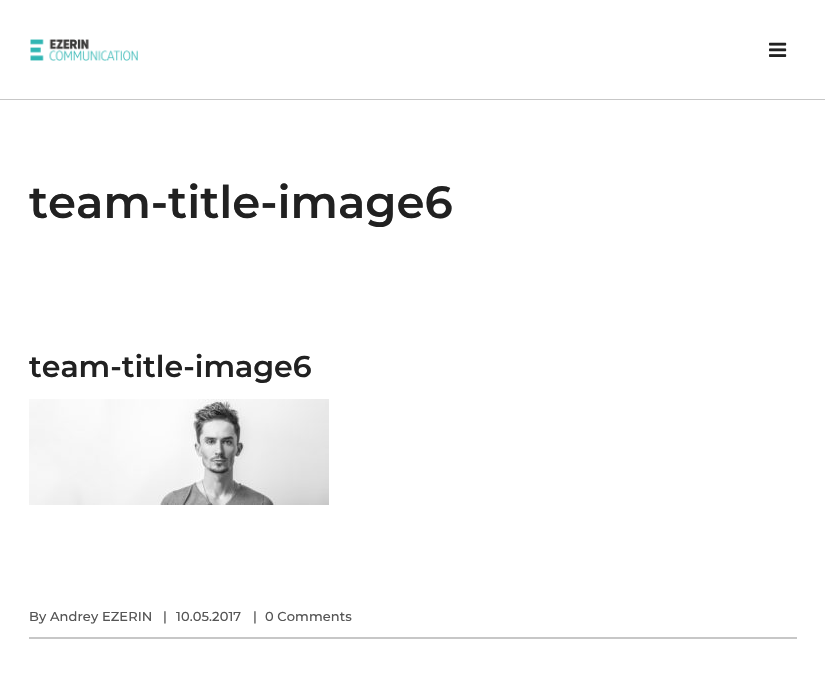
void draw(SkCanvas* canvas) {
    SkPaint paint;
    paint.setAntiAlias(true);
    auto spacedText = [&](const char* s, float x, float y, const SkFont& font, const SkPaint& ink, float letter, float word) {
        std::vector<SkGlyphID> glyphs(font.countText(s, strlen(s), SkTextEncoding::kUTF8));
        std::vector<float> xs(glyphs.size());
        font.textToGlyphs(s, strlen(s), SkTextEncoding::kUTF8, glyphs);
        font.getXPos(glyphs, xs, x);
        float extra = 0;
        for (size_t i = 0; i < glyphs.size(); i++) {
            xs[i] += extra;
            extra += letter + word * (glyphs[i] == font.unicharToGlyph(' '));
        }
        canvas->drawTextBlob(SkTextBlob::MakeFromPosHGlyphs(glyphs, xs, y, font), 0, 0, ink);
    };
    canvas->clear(0xFFFFFFFF);
    paint.setColor(0xFFC7C7C7);
    canvas->drawRect(SkRect::MakeXYWH(0, 99, 825, 1), paint);
    canvas->drawImageRect(SkImages::DeferredFromEncodedData(SkData::MakeFromFileName("img1.png")), SkRect::MakeXYWH(30, 39, 108, 22), SkSamplingOptions());
    canvas->drawImageRect(SkImages::DeferredFromEncodedData(SkData::MakeFromFileName("img2.png")), SkRect::MakeXYWH(769, 42, 18, 15), SkSamplingOptions());
    SkFont font1(fontMgr->matchFamilyStyle("Montserrat", SkFontStyle(600, SkFontStyle::kNormal_Width, SkFontStyle::kUpright_Slant)), 45);
    font1.setSubpixel(true);
    paint.setColor(0xFF212121);
    canvas->drawString("team-title-image6", 29, 218, font1, paint);
    paint.setColor(0xFFC7C7C7);
    canvas->drawRect(SkRect::MakeXYWH(29, 637, 768, 2), paint);
    SkFont font2(fontMgr->matchFamilyStyle("Montserrat", SkFontStyle(600, SkFontStyle::kNormal_Width, SkFontStyle::kUpright_Slant)), 30);
    font2.setSubpixel(true);
    paint.setColor(0xFF212121);
    canvas->drawString("team-title-image6", 29, 377, font2, paint);
    canvas->drawImageRect(SkImages::DeferredFromEncodedData(SkData::MakeFromFileName("img3.png")), SkRect::MakeXYWH(29, 399, 300, 106), SkSamplingOptions());
    SkFont font3(fontMgr->matchFamilyStyle("Montserrat", SkFontStyle(500, SkFontStyle::kNormal_Width, SkFontStyle::kUpright_Slant)), 13);
    font3.setSubpixel(true);
    paint.setColor(0xFF555555);
    spacedText("By Andrey EZERIN", 29, 621, font3, paint, 0.1f, 0);
    spacedText("|", 163, 621, font3, paint, 0.1f, 0);
    spacedText("10.05.2017", 176, 621, font3, paint, 0.1f, 0);
    spacedText("|", 253, 621, font3, paint, 0.1f, 0);
    spacedText("0 Comments", 265, 621, font3, paint, 0.1f, 0);
}
